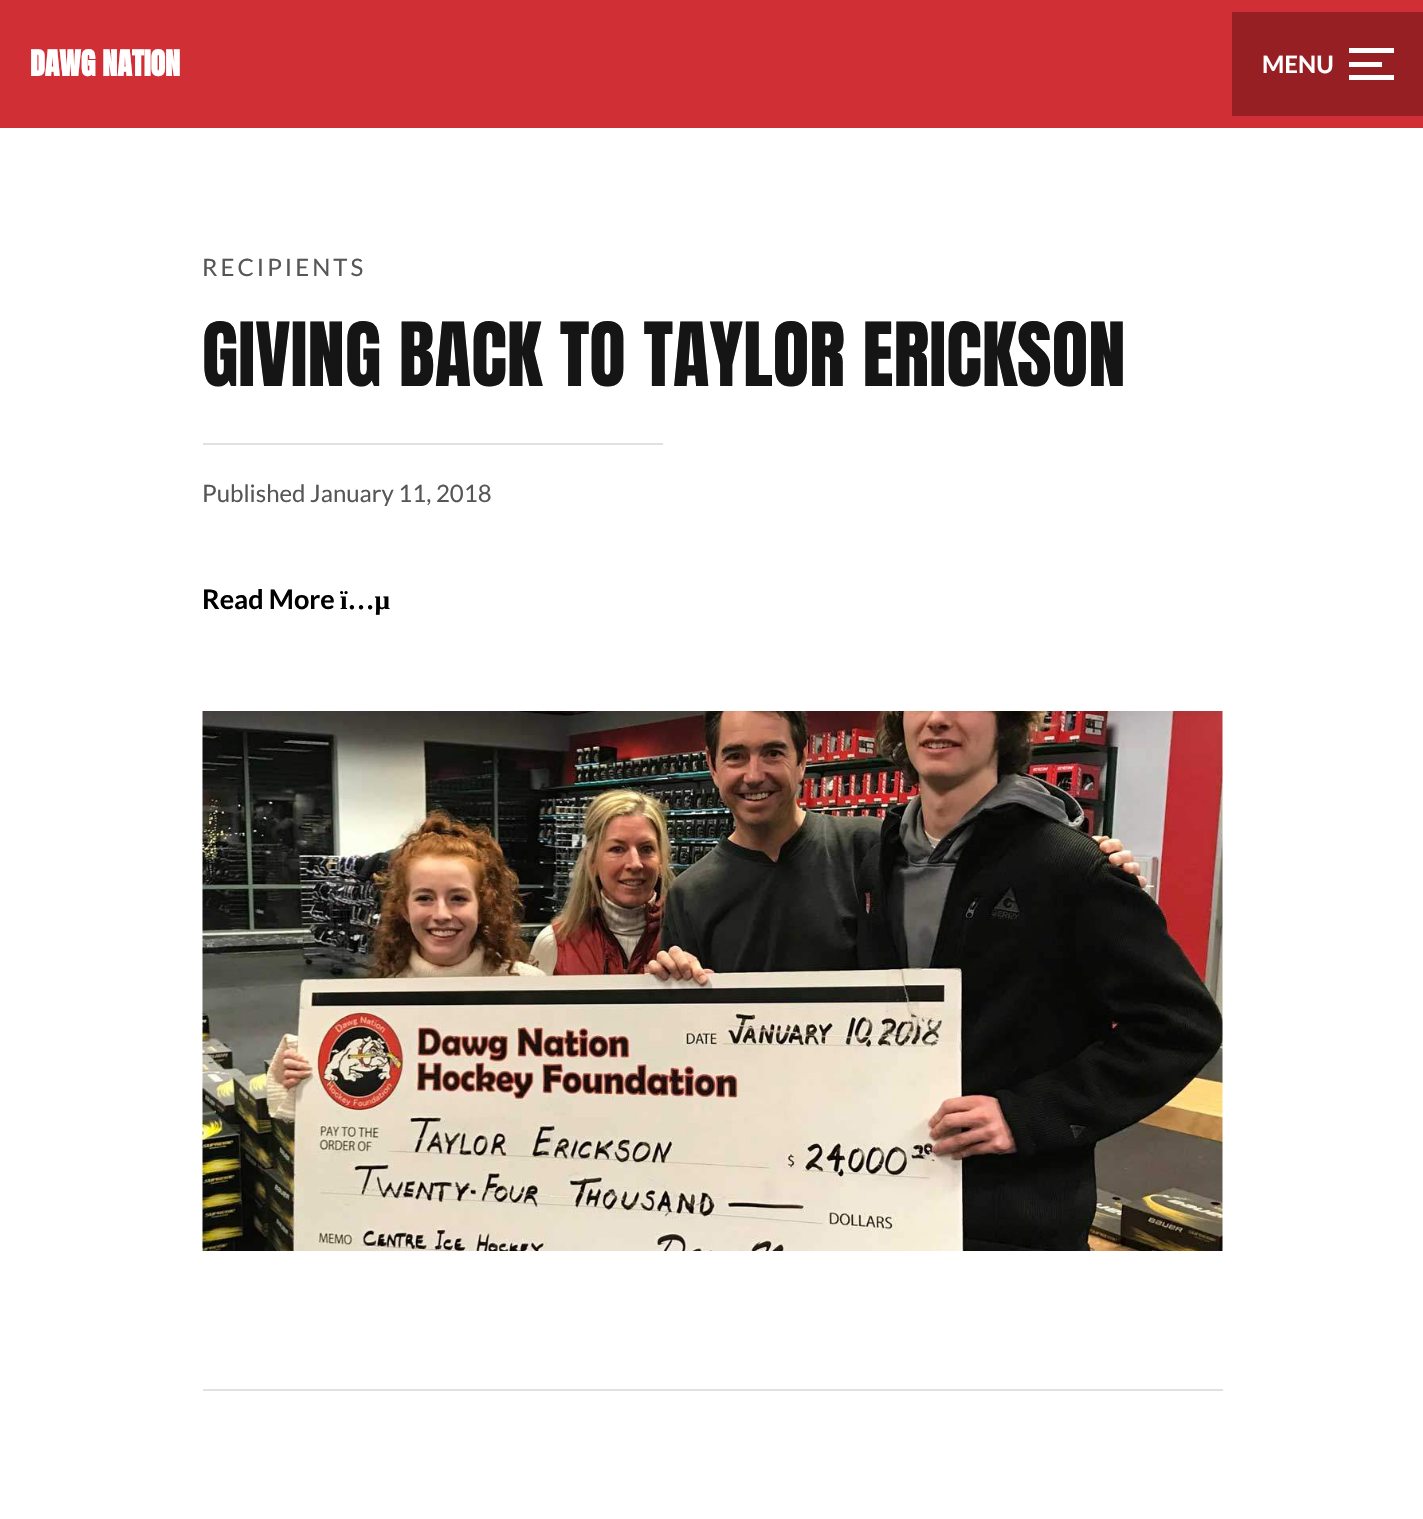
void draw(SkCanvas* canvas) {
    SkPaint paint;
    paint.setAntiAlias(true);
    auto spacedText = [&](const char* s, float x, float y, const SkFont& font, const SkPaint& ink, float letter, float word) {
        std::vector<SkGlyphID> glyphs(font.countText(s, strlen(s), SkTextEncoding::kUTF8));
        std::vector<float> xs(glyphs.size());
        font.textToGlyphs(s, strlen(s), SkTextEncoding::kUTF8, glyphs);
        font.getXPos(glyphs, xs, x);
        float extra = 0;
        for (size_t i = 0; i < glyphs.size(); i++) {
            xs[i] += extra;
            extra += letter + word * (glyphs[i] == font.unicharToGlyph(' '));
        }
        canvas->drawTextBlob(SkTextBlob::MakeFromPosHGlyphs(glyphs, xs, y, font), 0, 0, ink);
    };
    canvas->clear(0xFFFFFFFF);
    paint.setColor(0xFFD12F36);
    canvas->drawRect(SkRect::MakeXYWH(0, 0, 1423, 128), paint);
    SkFont font1(fontMgr->matchFamilyStyle("Anton", SkFontStyle::Bold()), 30);
    font1.setSubpixel(true);
    paint.setColor(0xFFFFFFFF);
    canvas->drawString("DAWG NATION", 30, 76, font1, paint);
    paint.setColor(0xFF961F24);
    canvas->drawRect(SkRect::MakeXYWH(1232, 12, 191, 104), paint);
    SkFont font2(fontMgr->matchFamilyStyle("Lato", SkFontStyle::Bold()), 24);
    font2.setSubpixel(true);
    paint.setColor(0xFFFFFFFF);
    canvas->drawString("MENU", 1262, 73, font2, paint);
    canvas->drawRect(SkRect::MakeXYWH(1349, 48, 45, 5), paint);
    canvas->drawRect(SkRect::MakeXYWH(1349, 62, 33, 5), paint);
    canvas->drawRect(SkRect::MakeXYWH(1349, 75, 45, 5), paint);
    SkFont font3(fontMgr->matchFamilyStyle("Lato", SkFontStyle::Normal()), 24);
    font3.setSubpixel(true);
    paint.setColor(0xFF565656);
    spacedText("RECIPIENTS", 202, 276, font3, paint, 3, 0);
    SkFont font4(fontMgr->matchFamilyStyle("Anton", SkFontStyle::Normal()), 75);
    font4.setSubpixel(true);
    paint.setColor(0xFF151515);
    canvas->drawString("GIVING BACK TO TAYLOR ERICKSON", 202, 386, font4, paint);
    paint.setColor(0xFFE1E1E1);
    canvas->drawRect(SkRect::MakeXYWH(203, 443, 460, 2), paint);
    paint.setColor(0xFF565656);
    canvas->drawString("Published January 11, 2018", 202, 502, font3, paint);
    SkFont font5(fontMgr->matchFamilyStyle("Lato", SkFontStyle::Bold()), 27);
    font5.setSubpixel(true);
    paint.setColor(0xFF000000);
    canvas->drawString("Read More", 202, 609, font5, paint);
    SkFont font6(fontMgr->matchFamilyStyle("Liberation Serif", SkFontStyle::Bold()), 27);
    font6.setSubpixel(true);
    canvas->drawString("ï…µ", 340, 609, font6, paint);
    canvas->drawImageRect(SkImages::DeferredFromEncodedData(SkData::MakeFromFileName("img1.png")), SkRect::MakeXYWH(202, 711, 1021, 540), SkSamplingOptions());
    paint.setColor(0xFFE1E1E1);
    canvas->drawRect(SkRect::MakeXYWH(203, 1389, 1020, 2), paint);
}
